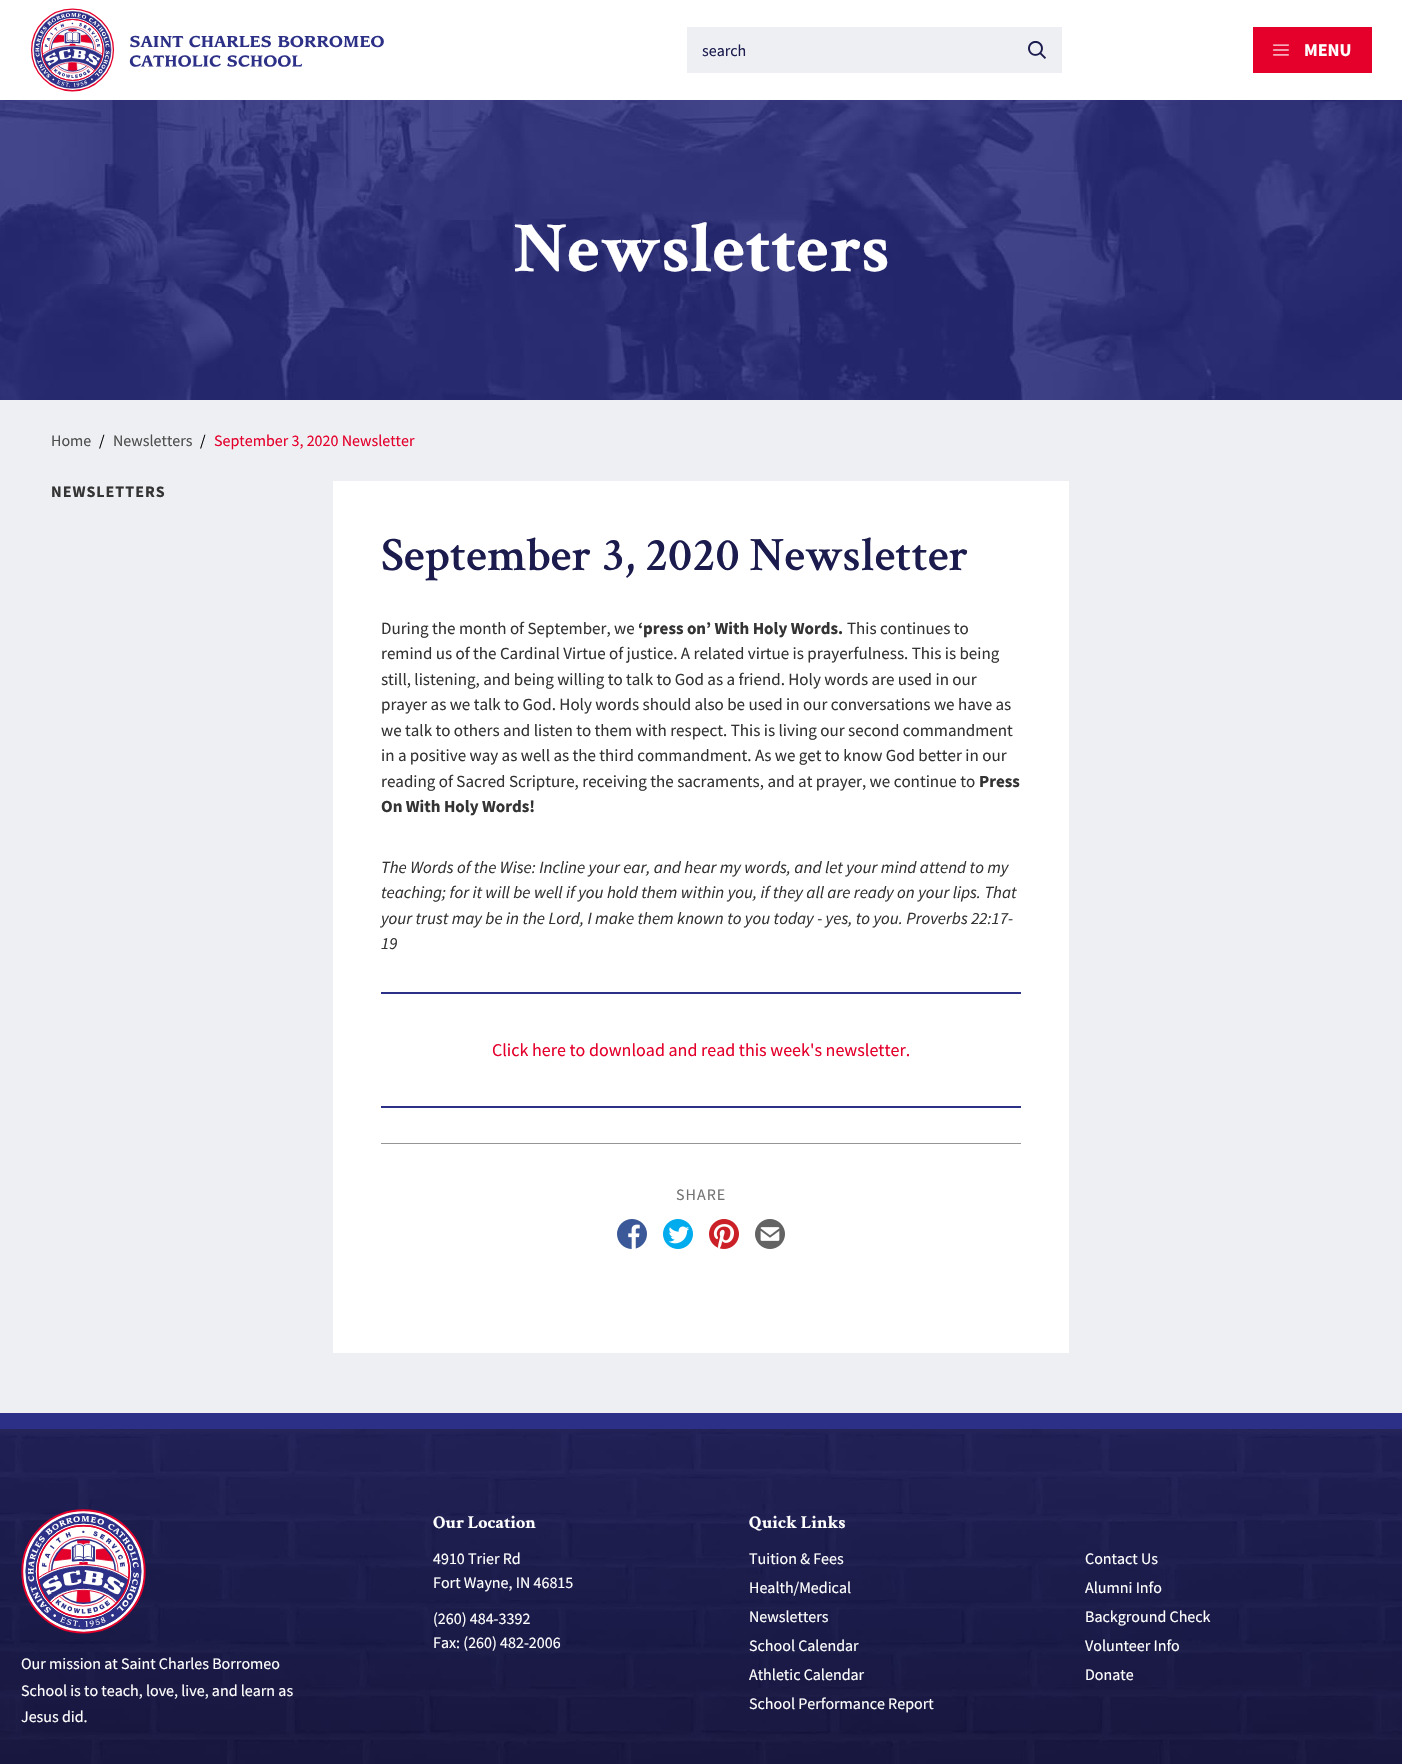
void draw(SkCanvas* canvas) {
    SkPaint paint;
    paint.setAntiAlias(true);
    auto spacedText = [&](const char* s, float x, float y, const SkFont& font, const SkPaint& ink, float letter, float word) {
        std::vector<SkGlyphID> glyphs(font.countText(s, strlen(s), SkTextEncoding::kUTF8));
        std::vector<float> xs(glyphs.size());
        font.textToGlyphs(s, strlen(s), SkTextEncoding::kUTF8, glyphs);
        font.getXPos(glyphs, xs, x);
        float extra = 0;
        for (size_t i = 0; i < glyphs.size(); i++) {
            xs[i] += extra;
            extra += letter + word * (glyphs[i] == font.unicharToGlyph(' '));
        }
        canvas->drawTextBlob(SkTextBlob::MakeFromPosHGlyphs(glyphs, xs, y, font), 0, 0, ink);
    };
    canvas->clear(0xFFFFFFFF);
    canvas->drawImageRect(SkImages::DeferredFromEncodedData(SkData::MakeFromFileName("img1.png")), SkRect::MakeXYWH(31, 8, 353, 84), SkSamplingOptions());
    paint.setColor(0xFFEEEFF3);
    canvas->drawRect(SkRect::MakeXYWH(687, 27, 375, 46), paint);
    SkFont font1(fontMgr->matchFamilyStyle("Source Sans Pro", SkFontStyle::Normal()), 16);
    font1.setSubpixel(true);
    paint.setColor(0xFF1B1B4E);
    canvas->drawString("search", 702, 56, font1, paint);
    canvas->drawImageRect(SkImages::DeferredFromEncodedData(SkData::MakeFromFileName("img2.png")), SkRect::MakeXYWH(1028, 41, 18, 18), SkSamplingOptions());
    paint.setColor(0xFFE4002B);
    canvas->drawRect(SkRect::MakeXYWH(1253, 27, 119, 46), paint);
    canvas->drawImageRect(SkImages::DeferredFromEncodedData(SkData::MakeFromFileName("img3.png")), SkRect::MakeXYWH(1273, 44, 16, 12), SkSamplingOptions());
    SkFont font2(fontMgr->matchFamilyStyle("Source Sans Pro", SkFontStyle::Bold()), 18);
    font2.setSubpixel(true);
    paint.setColor(0xFFFFFFFF);
    canvas->drawString("MENU", 1304, 56, font2, paint);
    paint.setColor(0xFFEEEFF3);
    canvas->drawRect(SkRect::MakeXYWH(0, 400, 1402, 1013), paint);
    canvas->drawImageRect(SkImages::DeferredFromEncodedData(SkData::MakeFromFileName("img4.png")), SkRect::MakeXYWH(0, 100, 1402, 300), SkSamplingOptions());
    SkFont font3(fontMgr->matchFamilyStyle("Crimson Text", SkFontStyle::Bold()), 72);
    font3.setSubpixel(true);
    paint.setColor(0xFFFFFFFF);
    canvas->drawString("Newsletters", 513, 271, font3, paint);
    paint.setColor(0xFF4E4E4E);
    canvas->drawString("Home", 51, 446, font1, paint);
    paint.setColor(0xFF000000);
    canvas->drawString("/", 99, 446, font1, paint);
    paint.setColor(0xFF4E4E4E);
    canvas->drawString("Newsletters", 113, 446, font1, paint);
    paint.setColor(0xFF000000);
    canvas->drawString("/", 200, 446, font1, paint);
    paint.setColor(0xFFE4002B);
    canvas->drawString("September 3, 2020 Newsletter", 214, 446, font1, paint);
    SkFont font4(fontMgr->matchFamilyStyle("Source Sans Pro", SkFontStyle::Bold()), 16);
    font4.setSubpixel(true);
    paint.setColor(0xFF343434);
    spacedText("NEWSLETTERS", 51, 497, font4, paint, 1, 0);
    paint.setColor(0xFFFFFFFF);
    canvas->drawRect(SkRect::MakeXYWH(333, 481, 736, 872), paint);
    SkFont font5(fontMgr->matchFamilyStyle("Crimson Text", SkFontStyle(600, SkFontStyle::kNormal_Width, SkFontStyle::kUpright_Slant)), 48);
    font5.setSubpixel(true);
    paint.setColor(0xFF1B1B4E);
    canvas->drawString("September 3, 2020 Newsletter", 381, 570, font5, paint);
    paint.setColor(0xFF959595);
    canvas->drawRect(SkRect::MakeXYWH(381, 1143, 640, 1), paint);
    SkFont font6(fontMgr->matchFamilyStyle("Source Sans Pro", SkFontStyle::Normal()), 17);
    font6.setSubpixel(true);
    paint.setColor(0xFF343434);
    canvas->drawString("During the month of September, we", 381, 634, font6, paint);
    SkFont font7(fontMgr->matchFamilyStyle("Source Sans Pro", SkFontStyle::Bold()), 17);
    font7.setSubpixel(true);
    canvas->drawString("‘press on’ With Holy Words.", 638, 634, font7, paint);
    canvas->drawString("This continues to", 847, 634, font6, paint);
    canvas->drawString("remind us of the Cardinal Virtue of justice. A related virtue is prayerfulness. This is being", 381, 659, font6, paint);
    canvas->drawString("still, listening, and being willing to talk to God as a friend. Holy words are used in our", 381, 685, font6, paint);
    canvas->drawString("prayer as we talk to God. Holy words should also be used in our conversations we have as", 381, 710, font6, paint);
    canvas->drawString("we talk to others and listen to them with respect. This is living our second commandment", 381, 736, font6, paint);
    canvas->drawString("in a positive way as well as the third commandment. As we get to know God better in our", 381, 761, font6, paint);
    canvas->drawString("reading of Sacred Scripture, receiving the sacraments, and at prayer, we continue to", 381, 787, font6, paint);
    canvas->drawString("Press", 979, 787, font7, paint);
    canvas->drawString("On With Holy Words!", 381, 812, font7, paint);
    SkFont font8(fontMgr->matchFamilyStyle("Source Sans Pro", SkFontStyle::Italic()), 17);
    font8.setSubpixel(true);
    canvas->drawString("The Words of the Wise: Incline your ear, and hear my words, and let your mind attend to my", 381, 873, font8, paint);
    canvas->drawString("teaching; for it will be well if you hold them within you, if they all are ready on your lips. That", 381, 898, font8, paint);
    canvas->drawString("your trust may be in the Lord, I make them known to you today - yes, to you. Proverbs 22:17-", 381, 924, font8, paint);
    canvas->drawString("19", 381, 949, font8, paint);
    paint.setColor(0xFF2D3087);
    canvas->drawRect(SkRect::MakeXYWH(381, 992, 640, 2), paint);
    canvas->drawRect(SkRect::MakeXYWH(381, 1106, 640, 2), paint);
    SkFont font9(fontMgr->matchFamilyStyle("Source Sans Pro", SkFontStyle::Normal()), 18);
    font9.setSubpixel(true);
    paint.setColor(0xFFE4002B);
    canvas->drawString("Click here to download and read this week's newsletter.", 492, 1056, font9, paint);
    paint.setColor(0xFF737373);
    spacedText("SHARE", 676, 1200, font1, paint, 1, 0);
    canvas->drawImageRect(SkImages::DeferredFromEncodedData(SkData::MakeFromFileName("img5.png")), SkRect::MakeXYWH(617, 1219, 30, 30), SkSamplingOptions());
    canvas->drawImageRect(SkImages::DeferredFromEncodedData(SkData::MakeFromFileName("img6.png")), SkRect::MakeXYWH(663, 1219, 30, 30), SkSamplingOptions());
    canvas->drawImageRect(SkImages::DeferredFromEncodedData(SkData::MakeFromFileName("img7.png")), SkRect::MakeXYWH(709, 1219, 30, 30), SkSamplingOptions());
    canvas->drawImageRect(SkImages::DeferredFromEncodedData(SkData::MakeFromFileName("img8.png")), SkRect::MakeXYWH(755, 1219, 30, 30), SkSamplingOptions());
    paint.setColor(0xFF2D3087);
    canvas->drawRect(SkRect::MakeXYWH(0, 1413, 1402, 16), paint);
    canvas->drawImageRect(SkImages::DeferredFromEncodedData(SkData::MakeFromFileName("img9.png")), SkRect::MakeXYWH(0, 1429, 1402, 335), SkSamplingOptions());
    canvas->drawImageRect(SkImages::DeferredFromEncodedData(SkData::MakeFromFileName("img10.png")), SkRect::MakeXYWH(21, 1509, 125, 125), SkSamplingOptions());
    paint.setColor(0xFFFFFFFF);
    canvas->drawString("Our mission at Saint Charles Borromeo", 21, 1669, font1, paint);
    canvas->drawString("School is to teach, love, live, and learn as", 21, 1696, font1, paint);
    canvas->drawString("Jesus did.", 21, 1722, font1, paint);
    SkFont font10(fontMgr->matchFamilyStyle("Crimson Text", SkFontStyle::Bold()), 18);
    font10.setSubpixel(true);
    canvas->drawString("Our Location", 433, 1528, font10, paint);
    canvas->drawString("4910 Trier Rd", 433, 1564, font1, paint);
    canvas->drawString("Fort Wayne, IN 46815", 433, 1588, font1, paint);
    canvas->drawString("(260) 484-3392", 433, 1624, font1, paint);
    canvas->drawString("Fax: (260) 482-2006", 433, 1648, font1, paint);
    canvas->drawString("Quick Links", 749, 1528, font10, paint);
    canvas->drawString("Tuition & Fees", 749, 1564, font1, paint);
    canvas->drawString("Health/Medical", 749, 1593, font1, paint);
    canvas->drawString("Newsletters", 749, 1622, font1, paint);
    canvas->drawString("School Calendar", 749, 1651, font1, paint);
    canvas->drawString("Athletic Calendar", 749, 1680, font1, paint);
    canvas->drawString("School Performance Report", 749, 1709, font1, paint);
    canvas->drawString("Contact Us", 1085, 1564, font1, paint);
    canvas->drawString("Alumni Info", 1085, 1593, font1, paint);
    canvas->drawString("Background Check", 1085, 1622, font1, paint);
    canvas->drawString("Volunteer Info", 1085, 1651, font1, paint);
    canvas->drawString("Donate", 1085, 1680, font1, paint);
}
